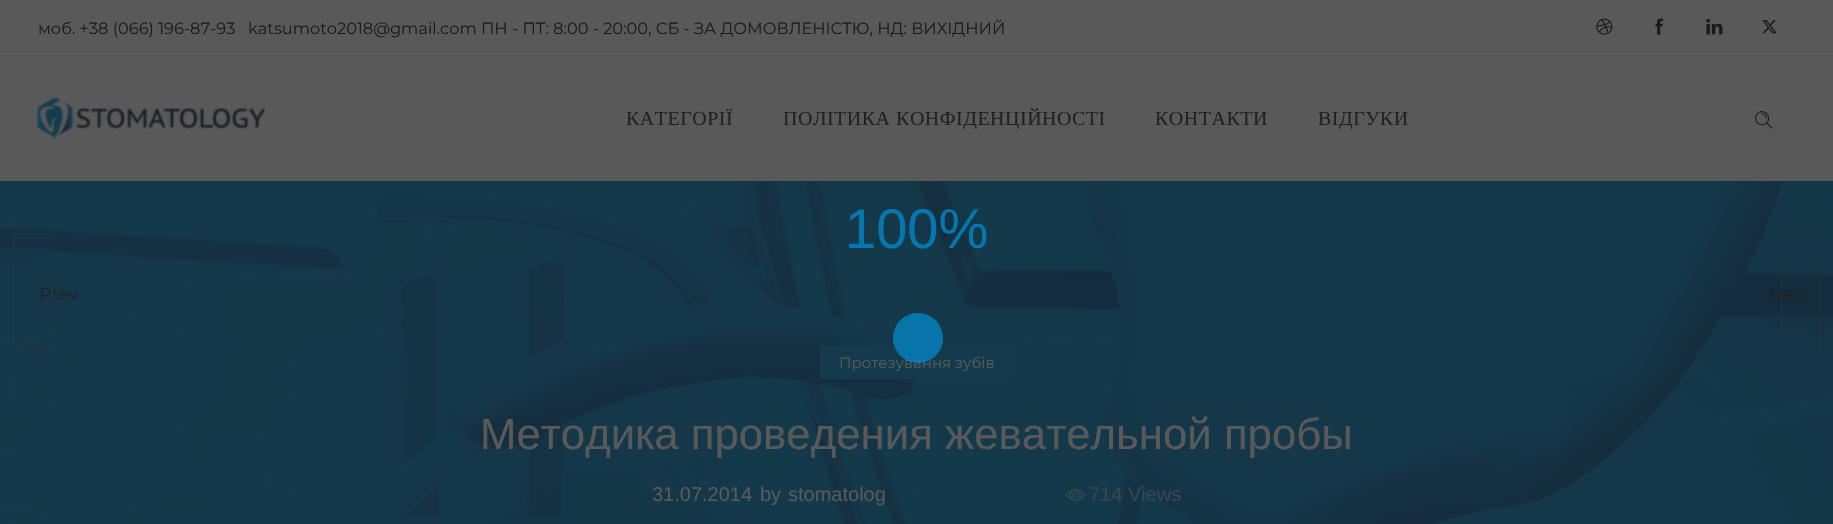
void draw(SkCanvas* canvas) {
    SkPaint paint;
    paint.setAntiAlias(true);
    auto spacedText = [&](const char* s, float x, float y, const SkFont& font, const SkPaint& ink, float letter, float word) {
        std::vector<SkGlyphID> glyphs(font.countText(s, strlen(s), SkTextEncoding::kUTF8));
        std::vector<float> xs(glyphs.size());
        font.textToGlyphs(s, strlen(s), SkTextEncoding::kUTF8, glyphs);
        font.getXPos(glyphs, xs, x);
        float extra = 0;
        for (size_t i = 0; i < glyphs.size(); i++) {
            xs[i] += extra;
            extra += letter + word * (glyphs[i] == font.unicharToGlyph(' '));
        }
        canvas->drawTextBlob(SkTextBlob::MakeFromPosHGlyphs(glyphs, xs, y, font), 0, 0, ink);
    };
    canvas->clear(0xFFFFFFFF);
    paint.setColor(0xFF595959);
    canvas->drawRect(SkRect::MakeXYWH(0, 0, 1833, 55), paint);
    paint.setColor(0xFF535353);
    canvas->drawRect(SkRect::MakeXYWH(0, 55, 1833, 1), paint);
    SkFont font1(fontMgr->matchFamilyStyle("Montserrat", SkFontStyle::Normal()), 16.25f);
    font1.setSubpixel(true);
    paint.setColor(0xFF1B1B1B);
    canvas->drawString("моб. +38 (066) 196-87-93", 38, 34, font1, paint);
    canvas->drawString("katsumoto2018@gmail.com ПН - ПТ: 8:00 - 20:00, СБ - ЗА ДОМОВЛЕНІСТЮ, НД: ВИХІДНИЙ", 248, 34, font1, paint);
    canvas->drawImageRect(SkImages::DeferredFromEncodedData(SkData::MakeFromFileName("img1.png")), SkRect::MakeXYWH(1596, 18, 17, 17), SkSamplingOptions());
    canvas->drawImageRect(SkImages::DeferredFromEncodedData(SkData::MakeFromFileName("img2.png")), SkRect::MakeXYWH(1655, 18, 9, 17), SkSamplingOptions());
    canvas->drawImageRect(SkImages::DeferredFromEncodedData(SkData::MakeFromFileName("img3.png")), SkRect::MakeXYWH(1706, 18, 17, 17), SkSamplingOptions());
    canvas->drawImageRect(SkImages::DeferredFromEncodedData(SkData::MakeFromFileName("img4.png")), SkRect::MakeXYWH(1762, 20, 15, 14), SkSamplingOptions());
    paint.setColor(0xFF595959);
    canvas->drawRect(SkRect::MakeXYWH(0, 56, 1833, 125), paint);
    canvas->drawImageRect(SkImages::DeferredFromEncodedData(SkData::MakeFromFileName("img5.png")), SkRect::MakeXYWH(37, 97, 229, 44), SkSamplingOptions());
    SkFont font2(fontMgr->matchFamilyStyle("Liberation Serif", SkFontStyle::Normal()), 20);
    font2.setSubpixel(true);
    paint.setColor(0xFF212121);
    spacedText("КАТЕГОРІЇ", 626, 125, font2, paint, 0.5f, 0);
    spacedText("ПОЛІТИКА КОНФІДЕНЦІЙНОСТІ", 783, 125, font2, paint, 0.5f, 0);
    spacedText("КОНТАКТИ", 1155, 125, font2, paint, 0.5f, 0);
    spacedText("ВІДГУКИ", 1318, 125, font2, paint, 0.5f, 0);
    canvas->drawImageRect(SkImages::DeferredFromEncodedData(SkData::MakeFromFileName("img6.png")), SkRect::MakeXYWH(1755, 111, 18, 18), SkSamplingOptions());
    canvas->drawImageRect(SkImages::DeferredFromEncodedData(SkData::MakeFromFileName("img7.png")), SkRect::MakeXYWH(0, 181, 1833, 343), SkSamplingOptions());
    SkFont font3(fontMgr->matchFamilyStyle("Liberation Sans", SkFontStyle::Normal()), 56);
    font3.setSubpixel(true);
    paint.setColor(0xFF0577AF);
    canvas->drawString("100%", 845, 248, font3, paint);
    paint.setColor(0xFF143A4D);
    canvas->drawRect(SkRect::MakeXYWH(820, 346, 194, 33), paint);
    SkFont font4(fontMgr->matchFamilyStyle("Montserrat", SkFontStyle::Normal()), 15);
    font4.setSubpixel(true);
    paint.setColor(0xFF595959);
    canvas->drawString("Протезування зубів", 839, 368, font4, paint);
    paint.setColor(0x70008FD5);
    canvas->drawCircle(918, 338, 25, paint);
    canvas->drawCircle(918, 338, 25, paint);
    paint.setStyle(SkPaint::kStroke_Style);
    paint.setStrokeWidth(1);
    paint.setColor(0x66343434);
    canvas->drawRoundRect(SkRect::MakeXYWH(13.5f, 233.5f, 39, 117), 2, 2, paint);
    SkFont font5(fontMgr->matchFamilyStyle("Montserrat", SkFontStyle::Normal()), 17.5f);
    font5.setSubpixel(true);
    paint.setStyle(SkPaint::kFill_Style);
    paint.setColor(0xFF212121);
    canvas->drawString("Prev", 39, 300, font5, paint);
    paint.setStyle(SkPaint::kStroke_Style);
    paint.setColor(0x66343434);
    canvas->drawRoundRect(SkRect::MakeXYWH(1781.5f, 233.5f, 39, 117), 2, 2, paint);
    paint.setStyle(SkPaint::kFill_Style);
    paint.setColor(0xFF212121);
    canvas->drawString("Next", 1768, 300, font5, paint);
    SkFont font6(fontMgr->matchFamilyStyle("Liberation Sans", SkFontStyle::Normal()), 43.75f);
    font6.setSubpixel(true);
    paint.setColor(0xFF595959);
    canvas->drawString("Методика проведения жевательной пробы", 480, 449, font6, paint);
    SkFont font7(fontMgr->matchFamilyStyle("Liberation Sans", SkFontStyle::Normal()), 20);
    font7.setSubpixel(true);
    canvas->drawString("31.07.2014", 652, 501, font7, paint);
    canvas->drawString("by", 760, 501, font7, paint);
    canvas->drawString("stomatolog", 788, 501, font7, paint);
    canvas->drawImageRect(SkImages::DeferredFromEncodedData(SkData::MakeFromFileName("img8.png")), SkRect::MakeXYWH(906, 487, 18, 15), SkSamplingOptions());
    canvas->drawImageRect(SkImages::DeferredFromEncodedData(SkData::MakeFromFileName("img9.png")), SkRect::MakeXYWH(1065, 489, 20, 12), SkSamplingOptions());
    paint.setColor(0xFF364750);
    canvas->drawString("714 Views", 1089, 501, font7, paint);
}
